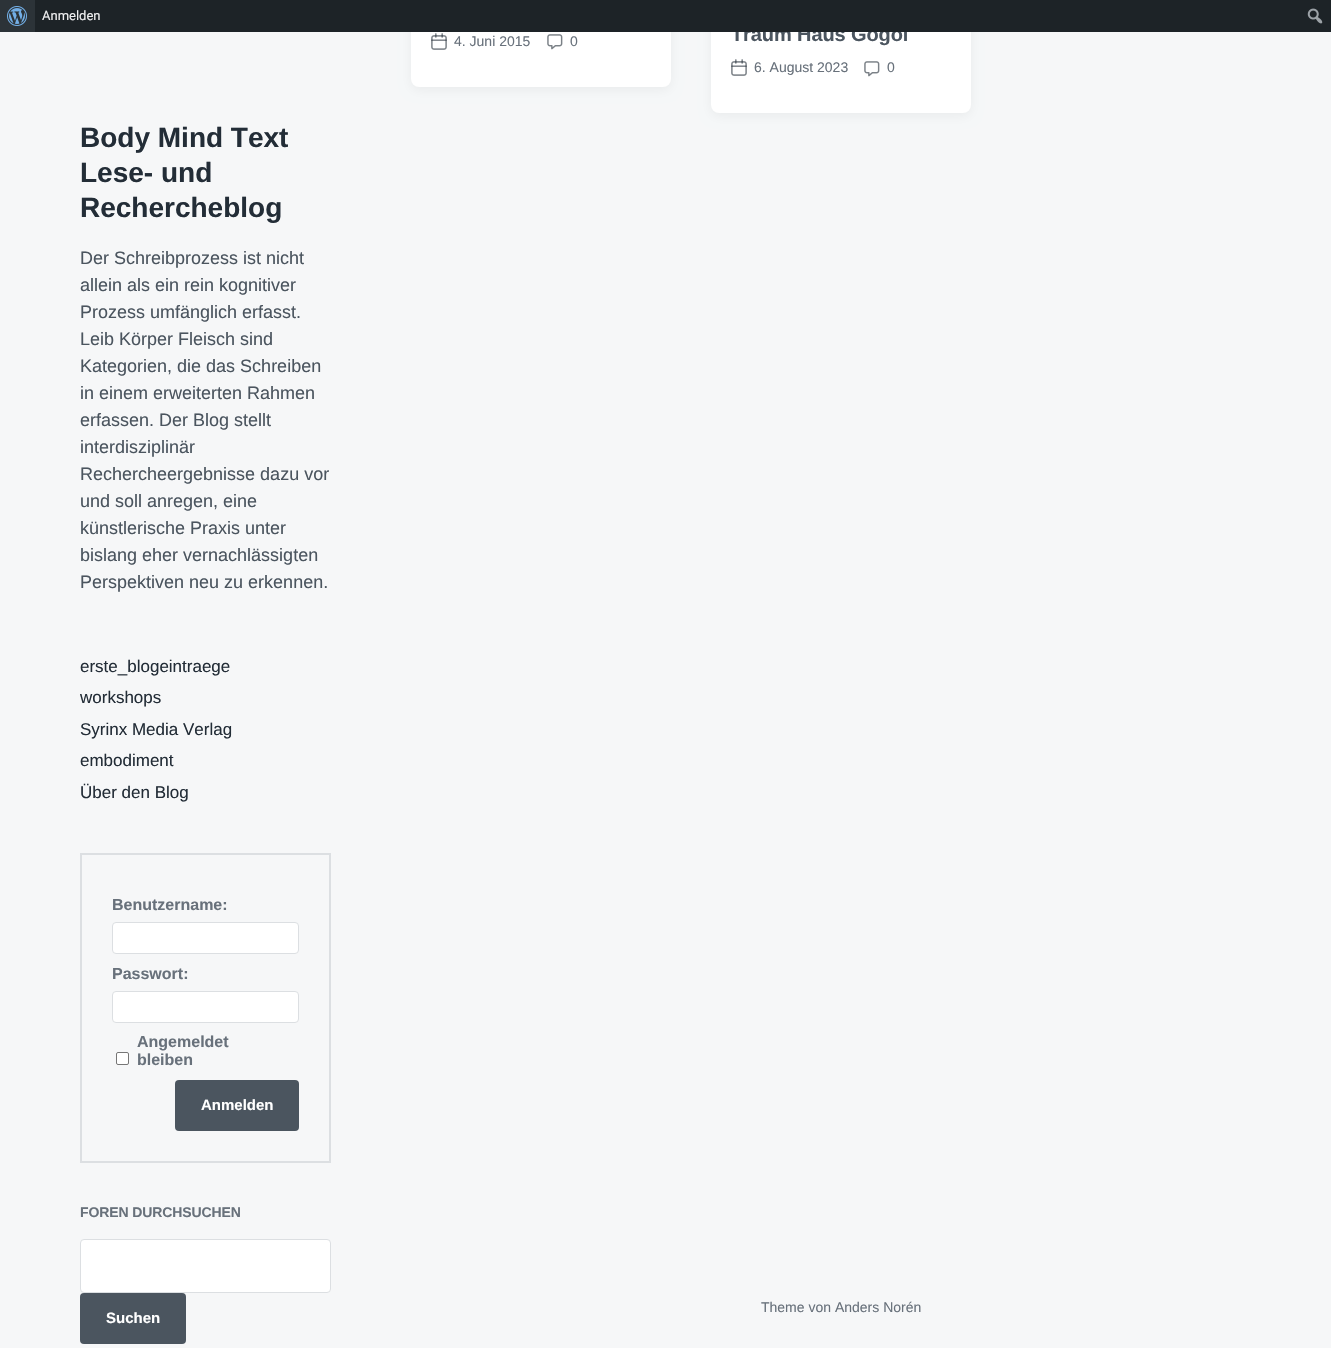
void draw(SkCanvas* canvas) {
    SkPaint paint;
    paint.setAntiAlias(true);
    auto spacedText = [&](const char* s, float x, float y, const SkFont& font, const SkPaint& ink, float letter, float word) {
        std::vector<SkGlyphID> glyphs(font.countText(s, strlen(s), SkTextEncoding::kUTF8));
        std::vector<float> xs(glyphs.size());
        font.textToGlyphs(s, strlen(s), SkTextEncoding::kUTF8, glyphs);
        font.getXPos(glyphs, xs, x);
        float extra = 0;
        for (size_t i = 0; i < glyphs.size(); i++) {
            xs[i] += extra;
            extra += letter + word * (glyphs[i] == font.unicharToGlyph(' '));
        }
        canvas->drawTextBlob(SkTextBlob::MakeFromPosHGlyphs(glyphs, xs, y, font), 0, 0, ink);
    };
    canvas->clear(0xFFF6F7F8);
    paint.setColor(0x0D050A0F);
    paint.setMaskFilter(SkMaskFilter::MakeBlur(kNormal_SkBlurStyle, 6));
    canvas->drawRoundRect(SkRect::MakeXYWH(411, -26, 260, 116), 8, 8, paint);
    paint.setMaskFilter(nullptr);
    paint.setColor(0xFFFFFFFF);
    canvas->drawRoundRect(SkRect::MakeXYWH(411, -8, 260, 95), 8, 8, paint);
    paint.setColor(0x0D050A0F);
    paint.setMaskFilter(SkMaskFilter::MakeBlur(kNormal_SkBlurStyle, 6));
    canvas->drawRoundRect(SkRect::MakeXYWH(711, -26, 260, 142), 8, 8, paint);
    paint.setMaskFilter(nullptr);
    paint.setColor(0xFFFFFFFF);
    canvas->drawRoundRect(SkRect::MakeXYWH(711, -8, 260, 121), 8, 8, paint);
    SkFont font1(fontMgr->matchFamilyStyle("Liberation Sans", SkFontStyle::Bold()), 20);
    font1.setSubpixel(true);
    paint.setColor(0xFF4B555F);
    spacedText("Traum Haus Gogol", 731, 41, font1, paint, -0.1f, 0);
    paint.setColor(0xFF1D2327);
    canvas->drawRect(SkRect::MakeXYWH(35, 0, 1296, 32), paint);
    paint.setColor(0xFF2C3338);
    canvas->drawRect(SkRect::MakeXYWH(0, 0, 35, 32), paint);
    canvas->drawImageRect(SkImages::DeferredFromEncodedData(SkData::MakeFromFileName("img1.png")), SkRect::MakeXYWH(7, 6, 20, 20), SkSamplingOptions());
    SkFont font2(fontMgr->matchFamilyStyle("Roboto", SkFontStyle::Normal()), 13);
    font2.setSubpixel(true);
    paint.setColor(0xFFF0F0F1);
    canvas->drawString("Anmelden", 42, 20, font2, paint);
    canvas->drawImageRect(SkImages::DeferredFromEncodedData(SkData::MakeFromFileName("img2.png")), SkRect::MakeXYWH(1307, 8, 16, 16), SkSamplingOptions());
    canvas->drawImageRect(SkImages::DeferredFromEncodedData(SkData::MakeFromFileName("img3.png")), SkRect::MakeXYWH(431, 33, 16, 17), SkSamplingOptions());
    SkFont font3(fontMgr->matchFamilyStyle("Liberation Sans", SkFontStyle::Normal()), 14);
    font3.setSubpixel(true);
    paint.setColor(0xFF68717B);
    canvas->drawString("4. Juni 2015", 454, 46, font3, paint);
    canvas->drawImageRect(SkImages::DeferredFromEncodedData(SkData::MakeFromFileName("img4.png")), SkRect::MakeXYWH(547, 34, 16, 16), SkSamplingOptions());
    canvas->drawString("0", 570, 46, font3, paint);
    canvas->drawImageRect(SkImages::DeferredFromEncodedData(SkData::MakeFromFileName("img3.png")), SkRect::MakeXYWH(731, 59, 16, 17), SkSamplingOptions());
    canvas->drawString("6. August 2023", 754, 72, font3, paint);
    canvas->drawImageRect(SkImages::DeferredFromEncodedData(SkData::MakeFromFileName("img4.png")), SkRect::MakeXYWH(864, 61, 16, 16), SkSamplingOptions());
    canvas->drawString("0", 887, 72, font3, paint);
    SkFont font4(fontMgr->matchFamilyStyle("Liberation Sans", SkFontStyle::Bold()), 28);
    font4.setSubpixel(true);
    paint.setColor(0xFF232D37);
    canvas->drawString("Body Mind Text", 80, 147, font4, paint);
    canvas->drawString("Lese- und", 80, 182, font4, paint);
    canvas->drawString("Rechercheblog", 80, 217, font4, paint);
    SkFont font5(fontMgr->matchFamilyStyle("Liberation Sans", SkFontStyle::Normal()), 18);
    font5.setSubpixel(true);
    paint.setColor(0xFF4B555F);
    canvas->drawString("Der Schreibprozess ist nicht", 80, 264, font5, paint);
    canvas->drawString("allein als ein rein kognitiver", 80, 291, font5, paint);
    canvas->drawString("Prozess umfänglich erfasst.", 80, 318, font5, paint);
    canvas->drawString("Leib Körper Fleisch sind", 80, 345, font5, paint);
    canvas->drawString("Kategorien, die das Schreiben", 80, 372, font5, paint);
    canvas->drawString("in einem erweiterten Rahmen", 80, 399, font5, paint);
    canvas->drawString("erfassen. Der Blog stellt", 80, 426, font5, paint);
    canvas->drawString("interdisziplinär", 80, 453, font5, paint);
    canvas->drawString("Rechercheergebnisse dazu vor", 80, 480, font5, paint);
    canvas->drawString("und soll anregen, eine", 80, 507, font5, paint);
    canvas->drawString("künstlerische Praxis unter", 80, 534, font5, paint);
    canvas->drawString("bislang eher vernachlässigten", 80, 561, font5, paint);
    canvas->drawString("Perspektiven neu zu erkennen.", 80, 588, font5, paint);
    SkFont font6(fontMgr->matchFamilyStyle("Liberation Sans", SkFontStyle::Normal()), 17);
    font6.setSubpixel(true);
    paint.setColor(0xFF232D37);
    canvas->drawString("erste_blogeintraege", 80, 672, font6, paint);
    canvas->drawString("workshops", 80, 703, font6, paint);
    canvas->drawString("Syrinx Media Verlag", 80, 735, font6, paint);
    canvas->drawString("embodiment", 80, 766, font6, paint);
    canvas->drawString("Über den Blog", 80, 798, font6, paint);
    paint.setStyle(SkPaint::kStroke_Style);
    paint.setStrokeWidth(2);
    paint.setColor(0xFFDCDFE2);
    canvas->drawRect(SkRect::MakeXYWH(81, 854, 249, 308), paint);
    SkFont font7(fontMgr->matchFamilyStyle("Liberation Sans", SkFontStyle::Bold()), 16);
    font7.setSubpixel(true);
    paint.setStyle(SkPaint::kFill_Style);
    paint.setColor(0xFF68717B);
    canvas->drawString("Benutzername:", 112, 910, font7, paint);
    paint.setColor(0xFFFFFFFF);
    canvas->drawRoundRect(SkRect::MakeXYWH(112.5f, 922.5f, 186, 31), 3.5f, 3.5f, paint);
    paint.setStyle(SkPaint::kStroke_Style);
    paint.setStrokeWidth(1);
    paint.setColor(0xFFDCDFE2);
    canvas->drawRoundRect(SkRect::MakeXYWH(112.5f, 922.5f, 186, 31), 3.5f, 3.5f, paint);
    paint.setStyle(SkPaint::kFill_Style);
    paint.setColor(0xFF68717B);
    canvas->drawString("Passwort:", 112, 979, font7, paint);
    paint.setColor(0xFFFFFFFF);
    canvas->drawRoundRect(SkRect::MakeXYWH(112.5f, 991.5f, 186, 31), 3.5f, 3.5f, paint);
    paint.setStyle(SkPaint::kStroke_Style);
    paint.setColor(0xFFDCDFE2);
    canvas->drawRoundRect(SkRect::MakeXYWH(112.5f, 991.5f, 186, 31), 3.5f, 3.5f, paint);
    paint.setStyle(SkPaint::kFill_Style);
    paint.setColor(0xFFFFFFFF);
    canvas->drawRoundRect(SkRect::MakeXYWH(116.5f, 1052.5f, 12, 12), 1.5f, 1.5f, paint);
    paint.setStyle(SkPaint::kStroke_Style);
    paint.setColor(0xFF767676);
    canvas->drawRoundRect(SkRect::MakeXYWH(116.5f, 1052.5f, 12, 12), 1.5f, 1.5f, paint);
    paint.setStyle(SkPaint::kFill_Style);
    paint.setColor(0xFF68717B);
    canvas->drawString("Angemeldet", 137, 1047, font7, paint);
    canvas->drawString("bleiben", 137, 1065, font7, paint);
    paint.setColor(0xFF4B555F);
    canvas->drawRoundRect(SkRect::MakeXYWH(175, 1080, 124, 51), 4, 4, paint);
    SkFont font8(fontMgr->matchFamilyStyle("Liberation Sans", SkFontStyle::Bold()), 15);
    font8.setSubpixel(true);
    paint.setColor(0xFFFFFFFF);
    canvas->drawString("Anmelden", 201, 1110, font8, paint);
    SkFont font9(fontMgr->matchFamilyStyle("Liberation Sans", SkFontStyle::Bold()), 14);
    font9.setSubpixel(true);
    paint.setColor(0xFF68717B);
    spacedText("FOREN DURCHSUCHEN", 80, 1217, font9, paint, -0.1f, 0);
    paint.setColor(0xFFFFFFFF);
    canvas->drawRoundRect(SkRect::MakeXYWH(80.5f, 1239.5f, 250, 53), 3.5f, 3.5f, paint);
    paint.setStyle(SkPaint::kStroke_Style);
    paint.setColor(0xFFDCDFE2);
    canvas->drawRoundRect(SkRect::MakeXYWH(80.5f, 1239.5f, 250, 53), 3.5f, 3.5f, paint);
    paint.setStyle(SkPaint::kFill_Style);
    paint.setColor(0xFF4B555F);
    canvas->drawRoundRect(SkRect::MakeXYWH(80, 1293, 106, 51), 4, 4, paint);
    paint.setColor(0xFFFFFFFF);
    canvas->drawString("Suchen", 106, 1323, font8, paint);
    paint.setColor(0xFF68717B);
    canvas->drawString("Theme von Anders Norén", 761, 1312, font3, paint);
}
